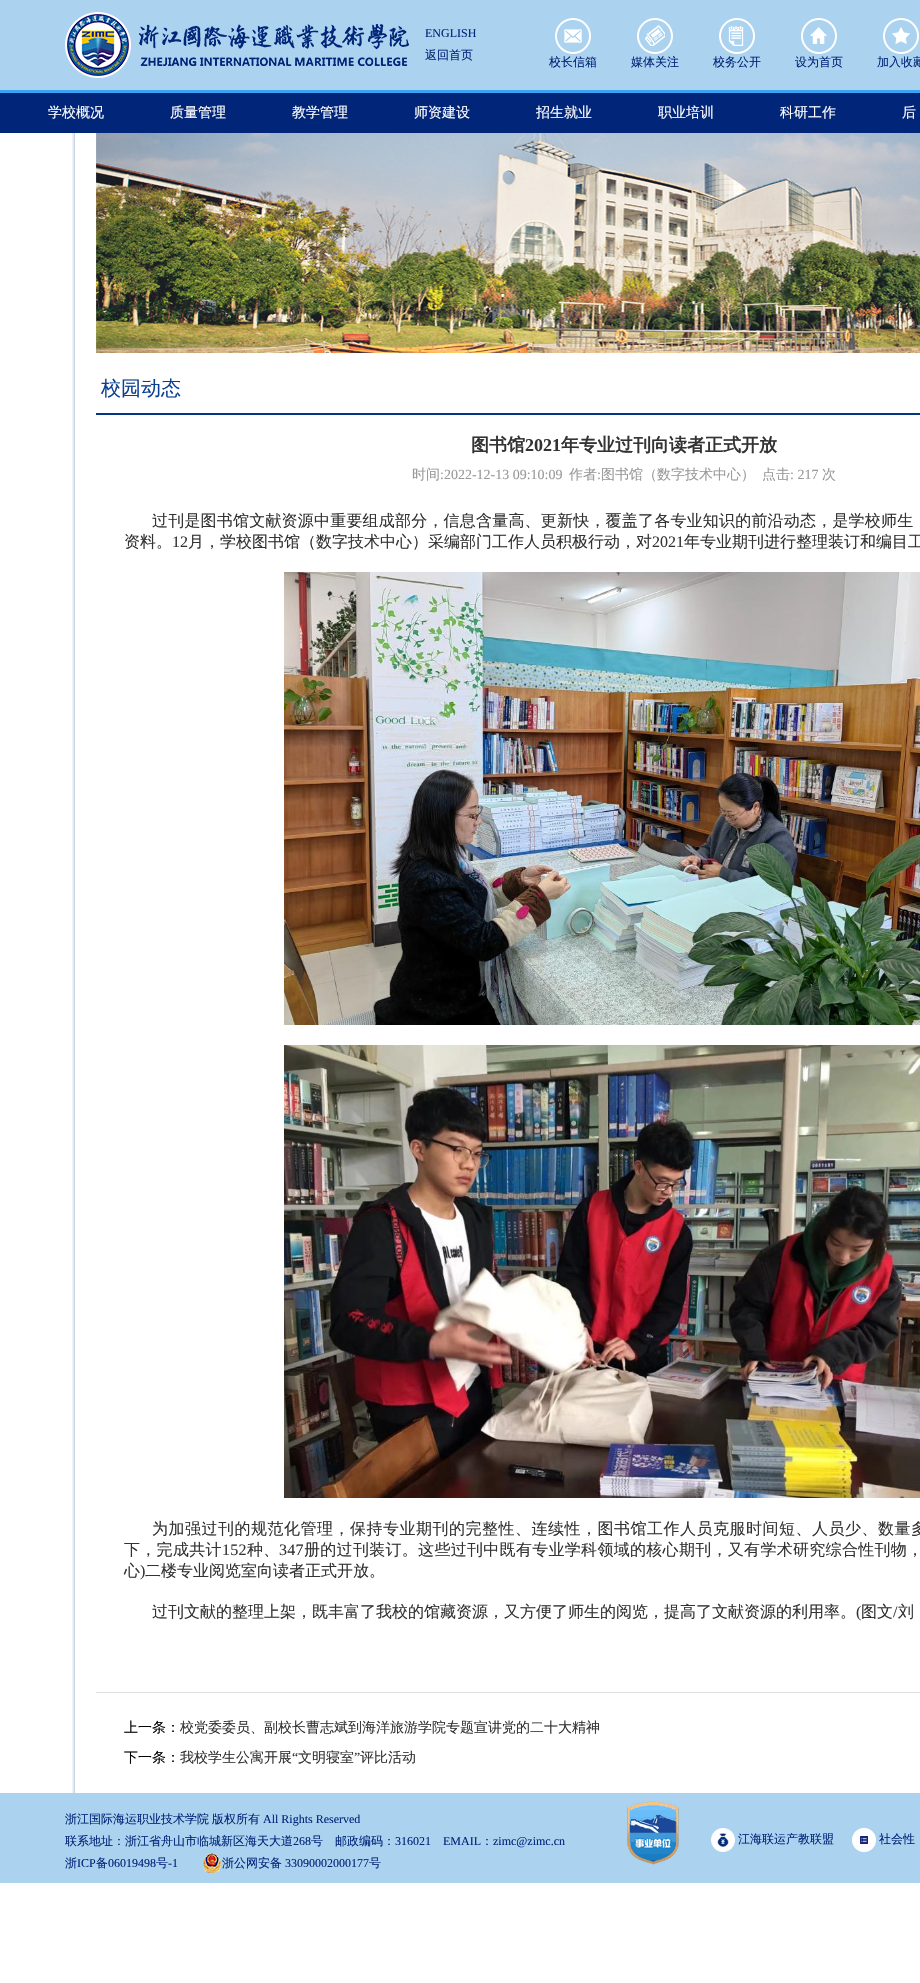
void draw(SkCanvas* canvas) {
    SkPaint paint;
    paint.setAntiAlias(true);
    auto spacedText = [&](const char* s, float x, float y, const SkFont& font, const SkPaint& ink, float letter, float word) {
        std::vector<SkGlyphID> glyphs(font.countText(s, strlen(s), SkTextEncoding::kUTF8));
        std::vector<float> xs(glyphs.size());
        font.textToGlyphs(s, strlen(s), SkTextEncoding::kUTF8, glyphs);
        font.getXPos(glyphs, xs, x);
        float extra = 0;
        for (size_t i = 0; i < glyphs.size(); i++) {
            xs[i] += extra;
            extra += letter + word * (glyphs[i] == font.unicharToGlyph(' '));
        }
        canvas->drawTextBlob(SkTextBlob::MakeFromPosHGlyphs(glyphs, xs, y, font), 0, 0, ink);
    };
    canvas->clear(0xFFFFFFFF);
    paint.setColor(0xFFABD2EF);
    canvas->drawRect(SkRect::MakeXYWH(0, 0, 920, 90), paint);
    paint.setColor(0xFF3BA3F3);
    canvas->drawRect(SkRect::MakeXYWH(0, 90, 920, 3), paint);
    canvas->drawImageRect(SkImages::DeferredFromEncodedData(SkData::MakeFromFileName("img1.png")), SkRect::MakeXYWH(65, 12, 344, 66), SkSamplingOptions());
    SkFont font1(fontMgr->matchFamilyStyle("Liberation Serif", SkFontStyle::Normal()), 12);
    font1.setSubpixel(true);
    paint.setColor(0xFF012579);
    canvas->drawString("ENGLISH", 425, 37, font1, paint);
    SkFont font2(fontMgr->matchFamilyStyle("WenQuanYi Zen Hei", SkFontStyle(500, SkFontStyle::kNormal_Width, SkFontStyle::kUpright_Slant)), 12);
    font2.setSubpixel(true);
    canvas->drawString("返回首页", 425, 59, font2, paint);
    canvas->drawImageRect(SkImages::DeferredFromEncodedData(SkData::MakeFromFileName("img2.png")), SkRect::MakeXYWH(555, 18, 36, 36), SkSamplingOptions());
    canvas->drawString("校长信箱", 549, 66, font2, paint);
    canvas->drawImageRect(SkImages::DeferredFromEncodedData(SkData::MakeFromFileName("img3.png")), SkRect::MakeXYWH(637, 18, 36, 36), SkSamplingOptions());
    canvas->drawString("媒体关注", 631, 66, font2, paint);
    canvas->drawImageRect(SkImages::DeferredFromEncodedData(SkData::MakeFromFileName("img4.png")), SkRect::MakeXYWH(719, 18, 36, 36), SkSamplingOptions());
    canvas->drawString("校务公开", 713, 66, font2, paint);
    canvas->drawImageRect(SkImages::DeferredFromEncodedData(SkData::MakeFromFileName("img5.png")), SkRect::MakeXYWH(801, 18, 36, 36), SkSamplingOptions());
    canvas->drawString("设为首页", 795, 66, font2, paint);
    canvas->drawImageRect(SkImages::DeferredFromEncodedData(SkData::MakeFromFileName("img6.png")), SkRect::MakeXYWH(883, 18, 36, 36), SkSamplingOptions());
    canvas->drawString("加入收藏", 877, 66, font2, paint);
    canvas->drawRect(SkRect::MakeXYWH(0, 93, 920, 40), paint);
    SkFont font3(fontMgr->matchFamilyStyle("WenQuanYi Zen Hei", SkFontStyle(500, SkFontStyle::kNormal_Width, SkFontStyle::kUpright_Slant)), 14);
    font3.setSubpixel(true);
    paint.setColor(0xFFFFFFFF);
    canvas->drawString("学校概况", 48, 117, font3, paint);
    canvas->drawString("质量管理", 170, 117, font3, paint);
    canvas->drawString("教学管理", 292, 117, font3, paint);
    canvas->drawString("师资建设", 414, 117, font3, paint);
    canvas->drawString("招生就业", 536, 117, font3, paint);
    canvas->drawString("职业培训", 658, 117, font3, paint);
    canvas->drawString("科研工作", 780, 117, font3, paint);
    canvas->drawString("后", 902, 117, font3, paint);
    canvas->drawImageRect(SkImages::DeferredFromEncodedData(SkData::MakeFromFileName("img7.png")), SkRect::MakeXYWH(72, 133, 3, 1660), SkSamplingOptions());
    canvas->drawImageRect(SkImages::DeferredFromEncodedData(SkData::MakeFromFileName("img8.png")), SkRect::MakeXYWH(96, 133, 824, 220), SkSamplingOptions());
    paint.setColor(0xFF023681);
    canvas->drawRect(SkRect::MakeXYWH(96, 413, 824, 2), paint);
    SkFont font4(fontMgr->matchFamilyStyle("WenQuanYi Zen Hei", SkFontStyle(500, SkFontStyle::kNormal_Width, SkFontStyle::kUpright_Slant)), 20);
    font4.setSubpixel(true);
    paint.setColor(0xFF0B3F92);
    canvas->drawString("校园动态", 101, 395, font4, paint);
    SkFont font5(fontMgr->matchFamilyStyle("WenQuanYi Zen Hei", SkFontStyle::Bold()), 18);
    font5.setSubpixel(true);
    paint.setColor(0xFF333333);
    canvas->drawString("图书馆", 471, 451, font5, paint);
    SkFont font6(fontMgr->matchFamilyStyle("Liberation Serif", SkFontStyle::Bold()), 18);
    font6.setSubpixel(true);
    canvas->drawString("2021", 525, 451, font6, paint);
    canvas->drawString("年专业过刊向读者正式开放", 561, 451, font5, paint);
    paint.setColor(0xFF999999);
    canvas->drawString("时间", 412, 479, font3, paint);
    SkFont font7(fontMgr->matchFamilyStyle("Liberation Serif", SkFontStyle::Normal()), 14);
    font7.setSubpixel(true);
    canvas->drawString(":2022-12-13 09:10:09", 440, 479, font7, paint);
    canvas->drawString("作者", 569, 479, font3, paint);
    canvas->drawString(":", 597, 479, font7, paint);
    canvas->drawString("图书馆（数字技术中心）", 601, 479, font3, paint);
    canvas->drawString("点击", 762, 479, font3, paint);
    canvas->drawString(": 217", 790, 479, font7, paint);
    canvas->drawString("次", 822, 479, font3, paint);
    SkFont font8(fontMgr->matchFamilyStyle("WenQuanYi Zen Hei", SkFontStyle(500, SkFontStyle::kNormal_Width, SkFontStyle::kUpright_Slant)), 16);
    font8.setSubpixel(true);
    paint.setColor(0xFF333333);
    spacedText("过刊是图书馆文献资源中重要组成部分，信息含量高、更新快，覆盖了各专业知识的前沿动态，是学校师生", 152, 526, font8, paint, 0.2f, 0);
    canvas->drawString("资料。", 124, 547, font8, paint);
    SkFont font9(fontMgr->matchFamilyStyle("Liberation Serif", SkFontStyle::Normal()), 16);
    font9.setSubpixel(true);
    canvas->drawString("12", 172, 547, font9, paint);
    canvas->drawString("月，学校图书馆（数字技术中心）采编部门工作人员积极行动，对", 188, 547, font8, paint);
    canvas->drawString("2021", 652, 547, font9, paint);
    canvas->drawString("年专业期刊进行整理装订和编目工", 684, 547, font8, paint);
    canvas->drawImageRect(SkImages::DeferredFromEncodedData(SkData::MakeFromFileName("img9.png")), SkRect::MakeXYWH(284, 572, 636, 453), SkSamplingOptions());
    canvas->drawImageRect(SkImages::DeferredFromEncodedData(SkData::MakeFromFileName("img10.png")), SkRect::MakeXYWH(284, 1045, 636, 453), SkSamplingOptions());
    spacedText("为加强过刊的规范化管理，保持专业期刊的完整性、连续性，图书馆工作人员克服时间短、人员少、数量多", 152, 1534, font8, paint, 0.5f, 0);
    spacedText("下，完成共计", 124, 1555, font8, paint, 0.3f, 0);
    spacedText("152", 222, 1555, font9, paint, 0.3f, 0);
    spacedText("种、", 247, 1555, font8, paint, 0.3f, 0);
    spacedText("347", 279, 1555, font9, paint, 0.3f, 0);
    spacedText("册的过刊装订。这些过刊中既有专业学科领域的核心期刊，又有学术研究综合性刊物，", 304, 1555, font8, paint, 0.3f, 0);
    canvas->drawString("心", 124, 1576, font8, paint);
    canvas->drawString(")", 140, 1576, font9, paint);
    canvas->drawString("二楼专业阅览室向读者正式开放。", 145, 1576, font8, paint);
    canvas->drawString("过刊文献的整理上架，既丰富了我校的馆藏资源，又方便了师生的阅览，提高了文献资源的利用率。", 152, 1617, font8, paint);
    canvas->drawString("(", 856, 1617, font9, paint);
    canvas->drawString("图文", 861, 1617, font8, paint);
    canvas->drawString("/", 893, 1617, font9, paint);
    canvas->drawString("刘", 898, 1617, font8, paint);
    paint.setColor(0xFFE1E1E1);
    canvas->drawRect(SkRect::MakeXYWH(96, 1692, 824, 1), paint);
    paint.setColor(0xFF000000);
    canvas->drawString("上一条：", 124, 1732, font3, paint);
    paint.setColor(0xFF333333);
    canvas->drawString("校党委委员、副校长曹志斌到海洋旅游学院专题宣讲党的二十大精神", 180, 1732, font3, paint);
    paint.setColor(0xFF000000);
    canvas->drawString("下一条：", 124, 1762, font3, paint);
    paint.setColor(0xFF333333);
    canvas->drawString("我校学生公寓开展", 180, 1762, font3, paint);
    canvas->drawString("“", 292, 1762, font7, paint);
    canvas->drawString("文明寝室", 298, 1762, font3, paint);
    canvas->drawString("”", 354, 1762, font7, paint);
    canvas->drawString("评比活动", 360, 1762, font3, paint);
    paint.setColor(0xFFABD2EF);
    canvas->drawRect(SkRect::MakeXYWH(0, 1793, 920, 90), paint);
    paint.setColor(0xFF012579);
    canvas->drawString("浙江国际海运职业技术学院", 65, 1823, font2, paint);
    canvas->drawString("版权所有", 212, 1823, font2, paint);
    canvas->drawString("All Rights Reserved", 263, 1823, font1, paint);
    canvas->drawString("联系地址：浙江省舟山市临城新区海天大道", 65, 1845, font2, paint);
    canvas->drawString("268", 293, 1845, font1, paint);
    canvas->drawString("号　邮政编码：", 311, 1845, font2, paint);
    canvas->drawString("316021", 395, 1845, font1, paint);
    canvas->drawString("EMAIL", 443, 1845, font1, paint);
    canvas->drawString("：", 481, 1845, font2, paint);
    canvas->drawString("zimc@zimc.cn", 493, 1845, font1, paint);
    canvas->drawString("浙", 65, 1867, font2, paint);
    canvas->drawString("ICP", 77, 1867, font1, paint);
    canvas->drawString("备", 96, 1867, font2, paint);
    canvas->drawString("06019498", 108, 1867, font1, paint);
    canvas->drawString("号", 156, 1867, font2, paint);
    canvas->drawString("-1", 168, 1867, font1, paint);
    canvas->drawImageRect(SkImages::DeferredFromEncodedData(SkData::MakeFromFileName("img11.png")), SkRect::MakeXYWH(203, 1853, 18, 20), SkSamplingOptions());
    canvas->drawString("浙公网安备", 222, 1867, font2, paint);
    canvas->drawString("33090002000177", 285, 1867, font1, paint);
    canvas->drawString("号", 369, 1867, font2, paint);
    canvas->drawImageRect(SkImages::DeferredFromEncodedData(SkData::MakeFromFileName("img12.png")), SkRect::MakeXYWH(627, 1801, 52, 64), SkSamplingOptions());
    canvas->drawImageRect(SkImages::DeferredFromEncodedData(SkData::MakeFromFileName("img13.png")), SkRect::MakeXYWH(711, 1828, 24, 24), SkSamplingOptions());
    canvas->drawString("江海联运产教联盟", 738, 1843, font2, paint);
    canvas->drawImageRect(SkImages::DeferredFromEncodedData(SkData::MakeFromFileName("img14.png")), SkRect::MakeXYWH(852, 1828, 24, 24), SkSamplingOptions());
    canvas->drawString("社会性", 879, 1843, font2, paint);
}
